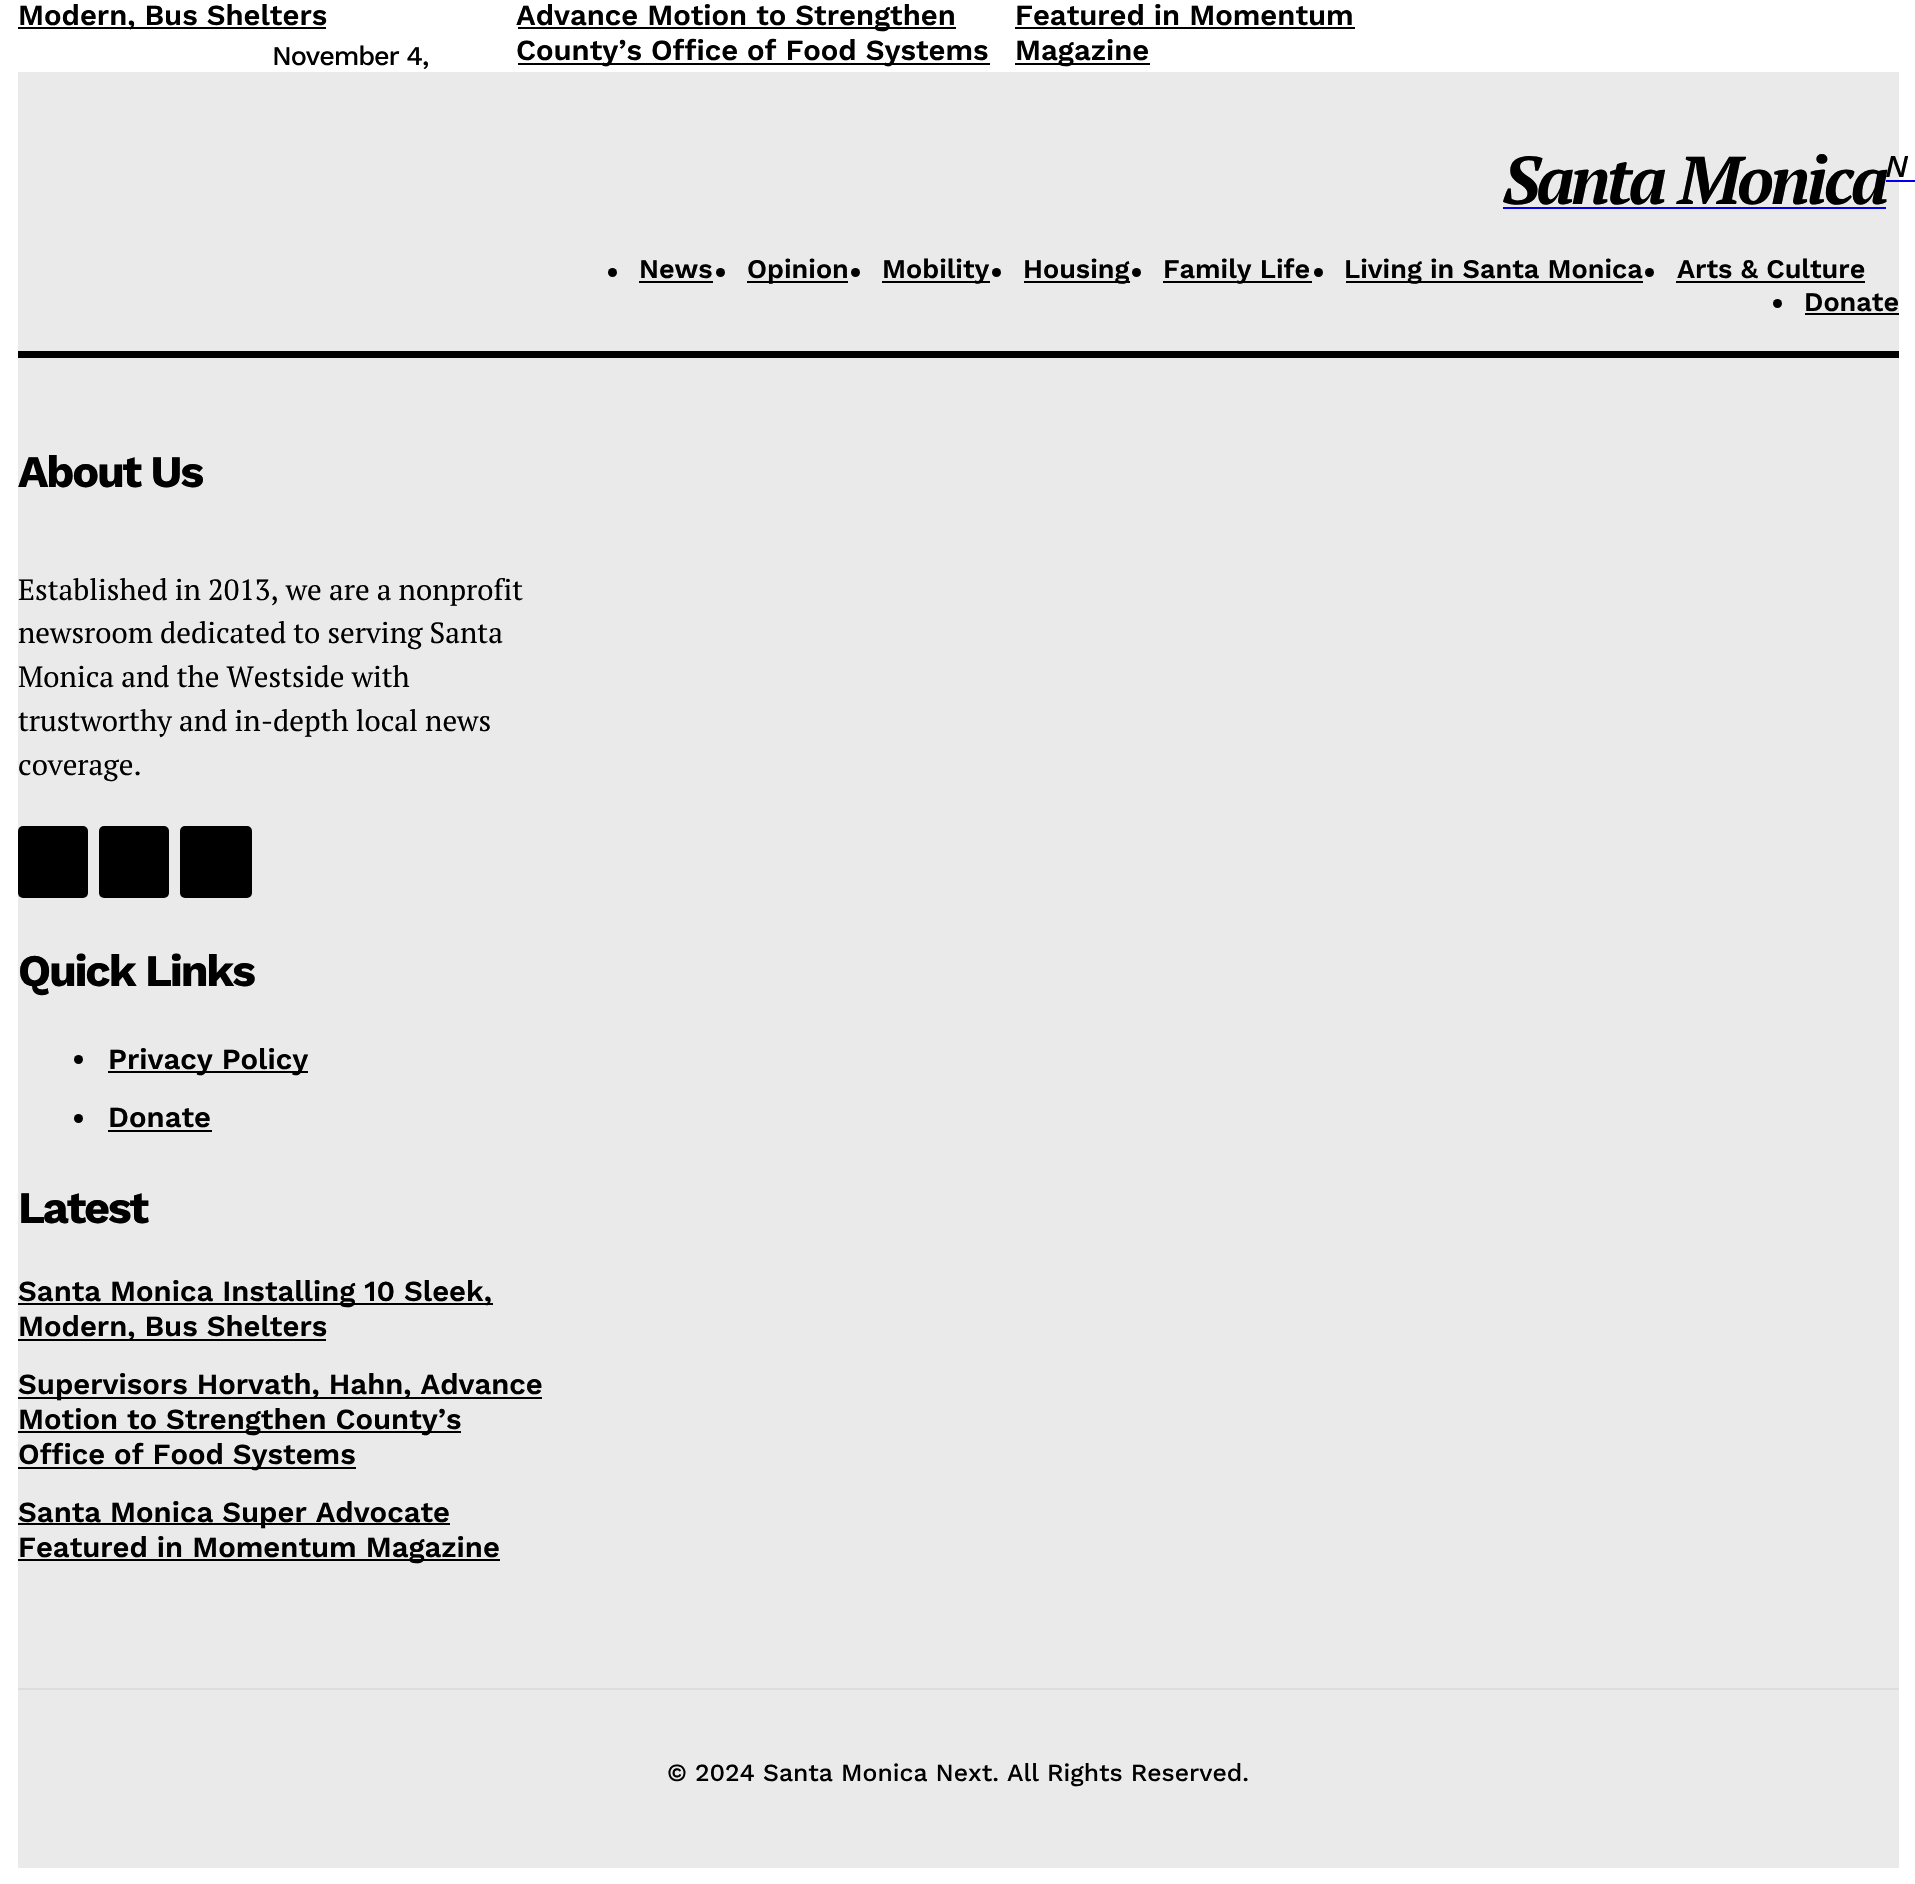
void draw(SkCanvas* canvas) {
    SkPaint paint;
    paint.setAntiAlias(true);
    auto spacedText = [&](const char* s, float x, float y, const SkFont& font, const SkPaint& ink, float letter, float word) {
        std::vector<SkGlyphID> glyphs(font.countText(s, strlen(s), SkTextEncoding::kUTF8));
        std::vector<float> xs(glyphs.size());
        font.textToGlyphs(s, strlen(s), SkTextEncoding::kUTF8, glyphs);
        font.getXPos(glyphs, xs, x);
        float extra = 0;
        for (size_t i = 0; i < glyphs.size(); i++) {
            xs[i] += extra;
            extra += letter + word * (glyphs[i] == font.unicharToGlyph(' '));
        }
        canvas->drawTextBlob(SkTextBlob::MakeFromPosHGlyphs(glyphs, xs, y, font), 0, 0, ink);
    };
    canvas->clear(0xFFFFFFFF);
    paint.setColor(0xFF000000);
    canvas->drawRect(SkRect::MakeXYWH(18, 27, 308, 2), paint);
    SkFont font1(fontMgr->matchFamilyStyle("Work Sans", SkFontStyle(600, SkFontStyle::kNormal_Width, SkFontStyle::kUpright_Slant)), 29.25f);
    font1.setSubpixel(true);
    canvas->drawString("Modern, Bus Shelters", 18, 25, font1, paint);
    SkFont font2(fontMgr->matchFamilyStyle("Work Sans", SkFontStyle(500, SkFontStyle::kNormal_Width, SkFontStyle::kUpright_Slant)), 27);
    font2.setSubpixel(true);
    spacedText("November 4,", 272, 65, font2, paint, -1.1f, 0);
    canvas->drawRect(SkRect::MakeXYWH(518, 27, 438, 2), paint);
    canvas->drawString("Advance Motion to Strengthen", 516, 25, font1, paint);
    canvas->drawRect(SkRect::MakeXYWH(518, 63, 472, 2), paint);
    canvas->drawString("County’s Office of Food Systems", 516, 60, font1, paint);
    canvas->drawString("Featured in Momentum", 1015, 25, font1, paint);
    canvas->drawRect(SkRect::MakeXYWH(1015, 27, 340, 2), paint);
    canvas->drawRect(SkRect::MakeXYWH(1015, 63, 135, 2), paint);
    canvas->drawString("Magazine", 1015, 60, font1, paint);
    paint.setColor(0xFFEAEAEA);
    canvas->drawRect(SkRect::MakeXYWH(18, 72, 1881, 1796), paint);
    paint.setColor(0xFF000000);
    canvas->drawRect(SkRect::MakeXYWH(18, 351, 1881, 7), paint);
    SkFont font3(fontMgr->matchFamilyStyle("PT Serif", SkFontStyle::BoldItalic()), 67.5f);
    font3.setSubpixel(true);
    spacedText("Santa Monica", 1502, 204, font3, paint, -3.4f, 0);
    paint.setColor(0xFF0000EE);
    canvas->drawRect(SkRect::MakeXYWH(1503, 207, 383, 2), paint);
    SkFont font4(fontMgr->matchFamilyStyle("Work Sans", SkFontStyle(500, SkFontStyle::kNormal_Width, SkFontStyle::kItalic_Slant)), 32);
    font4.setSubpixel(true);
    paint.setColor(0xFF000000);
    canvas->drawString("N", 1885, 177, font4, paint);
    paint.setColor(0xFF0000EE);
    canvas->drawRect(SkRect::MakeXYWH(1886, 180, 29, 2), paint);
    paint.setColor(0xFF000000);
    canvas->drawCircle(612.5f, 272.5f, 4.5f, paint);
    SkFont font5(fontMgr->matchFamilyStyle("Work Sans", SkFontStyle(600, SkFontStyle::kNormal_Width, SkFontStyle::kUpright_Slant)), 27);
    font5.setSubpixel(true);
    canvas->drawString("News", 639, 278, font5, paint);
    canvas->drawRect(SkRect::MakeXYWH(639, 281, 74, 2), paint);
    canvas->drawCircle(720.5f, 272.5f, 4.5f, paint);
    canvas->drawRect(SkRect::MakeXYWH(747, 281, 101, 2), paint);
    canvas->drawString("Opinion", 747, 278, font5, paint);
    canvas->drawCircle(855.5f, 272.5f, 4.5f, paint);
    canvas->drawRect(SkRect::MakeXYWH(882, 281, 108, 2), paint);
    canvas->drawString("Mobility", 882, 278, font5, paint);
    canvas->drawCircle(996.5f, 272.5f, 4.5f, paint);
    canvas->drawRect(SkRect::MakeXYWH(1024, 281, 106, 2), paint);
    canvas->drawString("Housing", 1023, 278, font5, paint);
    canvas->drawCircle(1136.5f, 272.5f, 4.5f, paint);
    canvas->drawRect(SkRect::MakeXYWH(1163, 281, 149, 2), paint);
    canvas->drawString("Family Life", 1163, 278, font5, paint);
    canvas->drawCircle(1318.5f, 272.5f, 4.5f, paint);
    canvas->drawRect(SkRect::MakeXYWH(1346, 281, 297, 2), paint);
    canvas->drawString("Living in Santa Monica", 1344, 278, font5, paint);
    canvas->drawCircle(1649.5f, 272.5f, 4.5f, paint);
    canvas->drawString("Arts & Culture", 1677, 278, font5, paint);
    canvas->drawRect(SkRect::MakeXYWH(1676, 281, 189, 2), paint);
    canvas->drawCircle(1777.5f, 303.5f, 4.5f, paint);
    canvas->drawString("Donate", 1804, 311, font5, paint);
    canvas->drawRect(SkRect::MakeXYWH(1805, 313, 94, 2), paint);
    SkFont font6(fontMgr->matchFamilyStyle("Work Sans", SkFontStyle::Bold()), 45);
    font6.setSubpixel(true);
    spacedText("About Us", 18, 487, font6, paint, -2.25f, 0);
    SkFont font7(fontMgr->matchFamilyStyle("PT Serif", SkFontStyle::Normal()), 29.25f);
    font7.setSubpixel(true);
    canvas->drawString("Established in 2013, we are a nonprofit", 18, 600, font7, paint);
    canvas->drawString("newsroom dedicated to serving Santa", 18, 643, font7, paint);
    canvas->drawString("Monica and the Westside with", 18, 687, font7, paint);
    canvas->drawString("trustworthy and in-depth local news", 18, 731, font7, paint);
    canvas->drawString("coverage.", 18, 775, font7, paint);
    canvas->drawRoundRect(SkRect::MakeXYWH(18, 826, 70, 72), 5, 5, paint);
    canvas->drawRoundRect(SkRect::MakeXYWH(99, 826, 70, 72), 5, 5, paint);
    canvas->drawRoundRect(SkRect::MakeXYWH(180, 826, 72, 72), 5, 5, paint);
    spacedText("Quick Links", 18, 986, font6, paint, -2.25f, 0);
    canvas->drawCircle(78.5f, 1059.5f, 4.5f, paint);
    canvas->drawRect(SkRect::MakeXYWH(108, 1071, 200, 2), paint);
    canvas->drawString("Privacy Policy", 108, 1069, font1, paint);
    canvas->drawCircle(78.5f, 1118.5f, 4.5f, paint);
    canvas->drawString("Donate", 108, 1127, font1, paint);
    canvas->drawRect(SkRect::MakeXYWH(108, 1130, 104, 2), paint);
    spacedText("Latest", 18, 1223, font6, paint, -2.25f, 0);
    canvas->drawRect(SkRect::MakeXYWH(18, 1303, 475, 2), paint);
    canvas->drawString("Santa Monica Installing 10 Sleek,", 18, 1301, font1, paint);
    canvas->drawRect(SkRect::MakeXYWH(18, 1339, 308, 2), paint);
    canvas->drawString("Modern, Bus Shelters", 18, 1336, font1, paint);
    canvas->drawRect(SkRect::MakeXYWH(18, 1397, 524, 2), paint);
    canvas->drawString("Supervisors Horvath, Hahn, Advance", 18, 1394, font1, paint);
    canvas->drawRect(SkRect::MakeXYWH(18, 1431, 443, 2), paint);
    canvas->drawString("Motion to Strengthen County’s", 18, 1429, font1, paint);
    canvas->drawRect(SkRect::MakeXYWH(18, 1467, 338, 2), paint);
    canvas->drawString("Office of Food Systems", 18, 1464, font1, paint);
    canvas->drawRect(SkRect::MakeXYWH(18, 1523, 432, 2), paint);
    canvas->drawString("Santa Monica Super Advocate", 18, 1522, font1, paint);
    canvas->drawRect(SkRect::MakeXYWH(18, 1559, 482, 2), paint);
    canvas->drawString("Featured in Momentum Magazine", 18, 1557, font1, paint);
    paint.setColor(0xFFDDDDDD);
    canvas->drawRect(SkRect::MakeXYWH(18, 1688, 1881, 2), paint);
    SkFont font8(fontMgr->matchFamilyStyle("Work Sans", SkFontStyle(500, SkFontStyle::kNormal_Width, SkFontStyle::kUpright_Slant)), 24.75f);
    font8.setSubpixel(true);
    paint.setColor(0xFF000000);
    canvas->drawString("© 2024 Santa Monica Next. All Rights Reserved.", 667, 1781, font8, paint);
}
